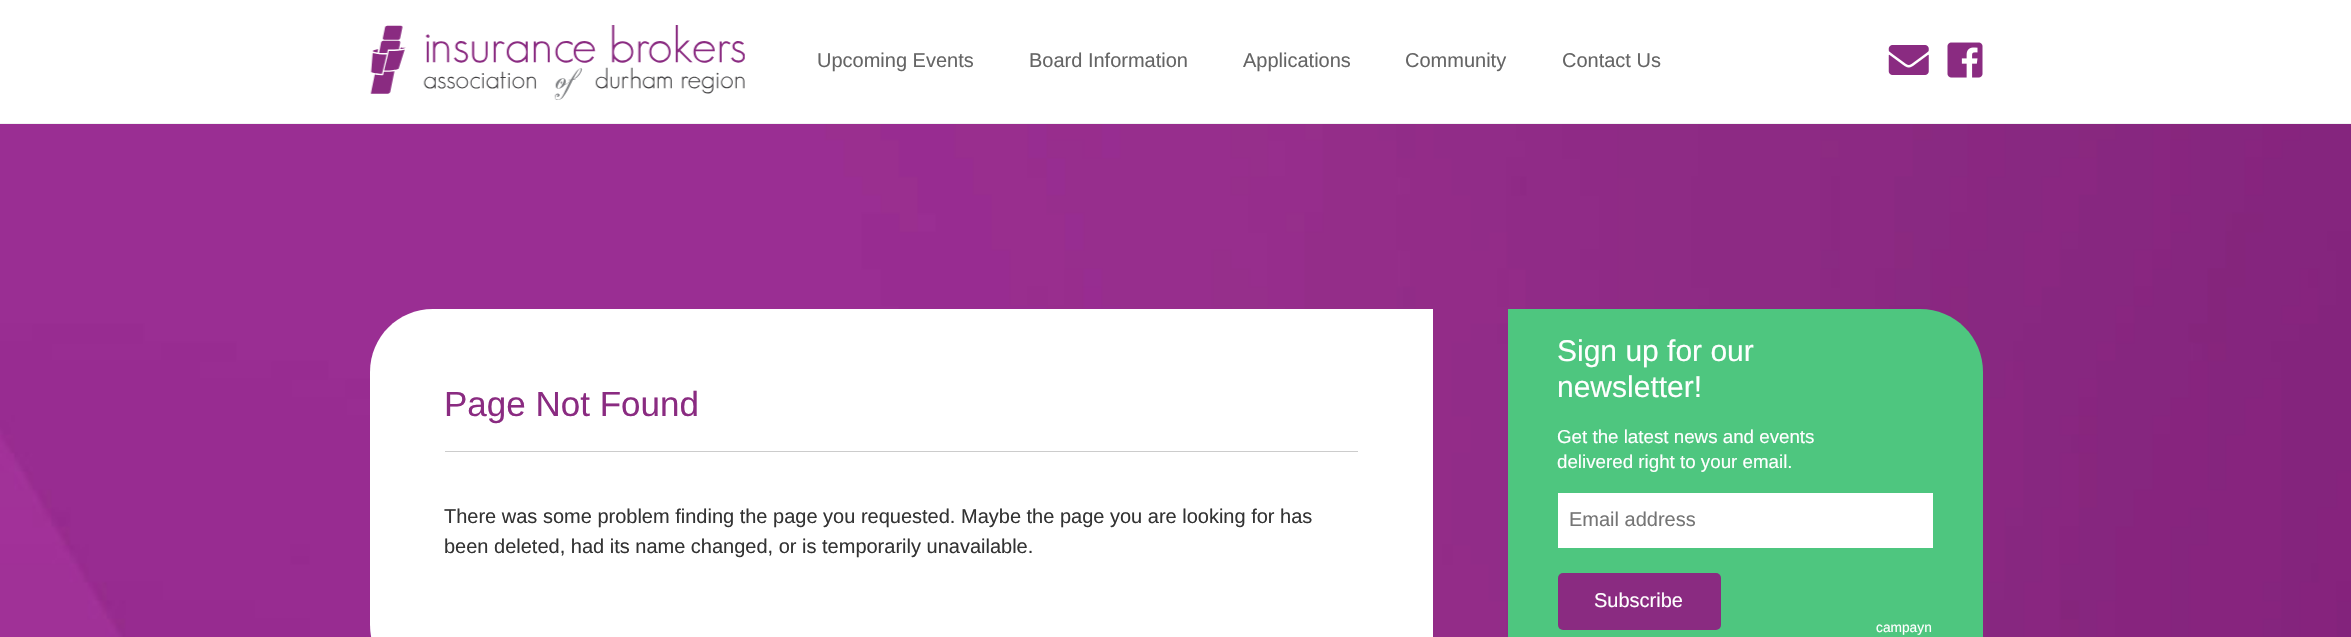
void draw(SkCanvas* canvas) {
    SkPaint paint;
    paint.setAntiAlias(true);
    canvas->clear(0xFFFFFFFF);
    paint.setColor(0xFFF2F2F2);
    canvas->drawRect(SkRect::MakeXYWH(0, 123, 2351, 1), paint);
    canvas->drawImageRect(SkImages::DeferredFromEncodedData(SkData::MakeFromFileName("img1.png")), SkRect::MakeXYWH(370, 25, 375, 75), SkSamplingOptions());
    SkFont font1(fontMgr->matchFamilyStyle("Liberation Sans", SkFontStyle::Normal()), 20);
    font1.setSubpixel(true);
    paint.setColor(0xFF656565);
    canvas->drawString("Upcoming Events", 817, 67, font1, paint);
    canvas->drawString("Board Information", 1029, 67, font1, paint);
    canvas->drawString("Applications", 1243, 67, font1, paint);
    canvas->drawString("Community", 1405, 67, font1, paint);
    canvas->drawString("Contact Us", 1562, 67, font1, paint);
    canvas->drawImageRect(SkImages::DeferredFromEncodedData(SkData::MakeFromFileName("img2.png")), SkRect::MakeXYWH(1888, 45, 41, 30), SkSamplingOptions());
    canvas->drawImageRect(SkImages::DeferredFromEncodedData(SkData::MakeFromFileName("img3.png")), SkRect::MakeXYWH(1947, 42, 36, 36), SkSamplingOptions());
    canvas->drawImageRect(SkImages::DeferredFromEncodedData(SkData::MakeFromFileName("img4.png")), SkRect::MakeXYWH(0, 124, 2351, 513), SkSamplingOptions());
    paint.setColor(0xFFFFFFFF);
    canvas->drawPath(SkPathBuilder().moveTo(433, 309).lineTo(1433, 309).lineTo(1433, 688).lineTo(433, 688).cubicTo(398, 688, 370, 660, 370, 625).lineTo(370, 372).cubicTo(370, 337, 398, 309, 433, 309).close().detach(), paint);
    paint.setColor(0xFFCCCCCC);
    canvas->drawRect(SkRect::MakeXYWH(445, 451, 913, 1), paint);
    SkFont font2(fontMgr->matchFamilyStyle("Liberation Sans", SkFontStyle::Normal()), 35);
    font2.setSubpixel(true);
    paint.setColor(0xFF8A2B81);
    canvas->drawString("Page Not Found", 444, 416, font2, paint);
    paint.setColor(0xFF333333);
    canvas->drawString("There was some problem finding the page you requested. Maybe the page you are looking for has", 444, 523, font1, paint);
    canvas->drawString("been deleted, had its name changed, or is temporarily unavailable.", 444, 553, font1, paint);
    paint.setColor(0xFF4EC67F);
    canvas->drawPath(SkPathBuilder().moveTo(1508, 309).lineTo(1920, 309).cubicTo(1955, 309, 1983, 337, 1983, 372).lineTo(1983, 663).lineTo(1508, 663).close().detach(), paint);
    SkFont font3(fontMgr->matchFamilyStyle("Liberation Sans", SkFontStyle::Normal()), 30);
    font3.setSubpixel(true);
    paint.setColor(0xFFFFFFFF);
    canvas->drawString("Sign up for our", 1557, 361, font3, paint);
    canvas->drawString("newsletter!", 1557, 397, font3, paint);
    SkFont font4(fontMgr->matchFamilyStyle("Liberation Sans", SkFontStyle::Normal()), 18.75f);
    font4.setSubpixel(true);
    canvas->drawString("Get the latest news and events", 1557, 443, font4, paint);
    canvas->drawString("delivered right to your email.", 1557, 468, font4, paint);
    canvas->drawRect(SkRect::MakeXYWH(1558, 493, 375, 55), paint);
    paint.setColor(0xFF757575);
    canvas->drawString("Email address", 1569, 526, font1, paint);
    paint.setColor(0xFF8A2B81);
    canvas->drawRoundRect(SkRect::MakeXYWH(1558, 573, 163, 57), 5, 5, paint);
    paint.setColor(0xFFFFFFFF);
    canvas->drawString("Subscribe", 1594, 607, font1, paint);
    SkFont font5(fontMgr->matchFamilyStyle("Liberation Sans", SkFontStyle::Normal()), 13.75f);
    font5.setSubpixel(true);
    canvas->drawString("campayn", 1876, 632, font5, paint);
}
